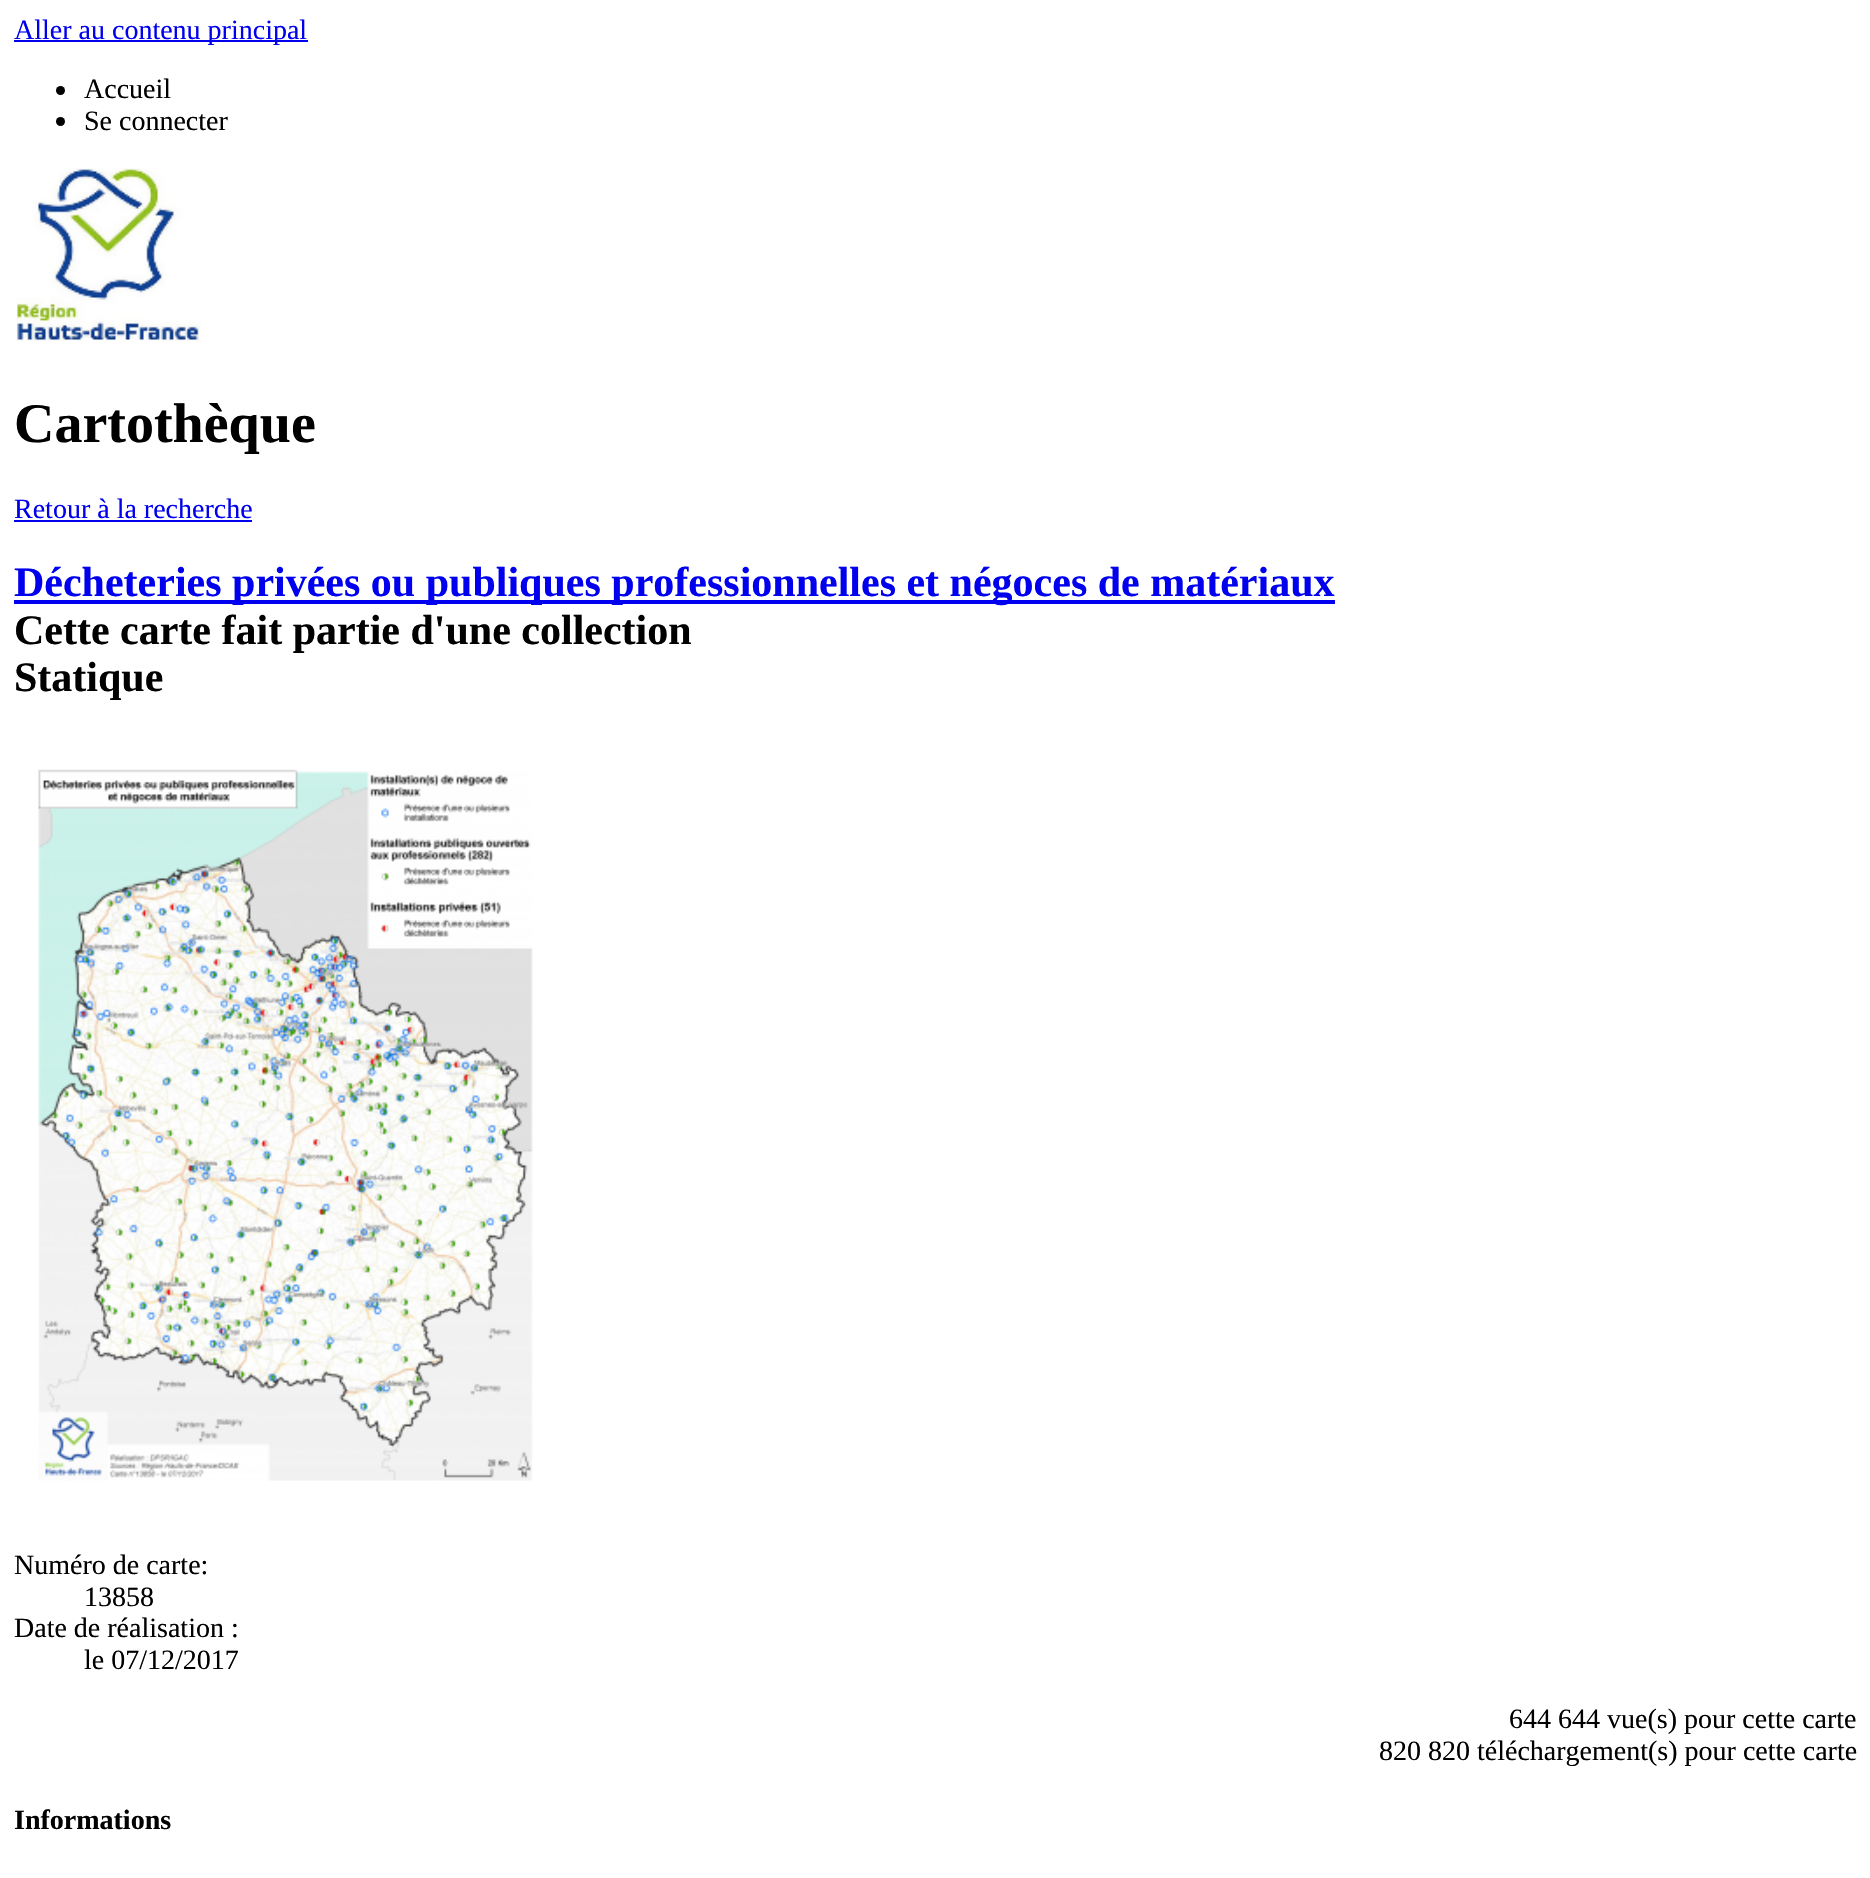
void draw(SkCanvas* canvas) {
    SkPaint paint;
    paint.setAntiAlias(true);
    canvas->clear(0xFFFFFFFF);
    paint.setColor(0xFF0000EE);
    canvas->drawRect(SkRect::MakeXYWH(14, 40, 294, 2), paint);
    SkFont font1(fontMgr->matchFamilyStyle("Liberation Serif", SkFontStyle::Normal()), 28);
    font1.setSubpixel(true);
    canvas->drawString("Aller au contenu principal", 14, 39, font1, paint);
    paint.setColor(0xFF000000);
    canvas->drawCircle(60.5f, 90.5f, 4.5f, paint);
    canvas->drawString("Accueil", 84, 98, font1, paint);
    canvas->drawCircle(60.5f, 121.5f, 4.5f, paint);
    canvas->drawString("Se connecter", 84, 130, font1, paint);
    canvas->drawImageRect(SkImages::DeferredFromEncodedData(SkData::MakeFromFileName("img1.png")), SkRect::MakeXYWH(16, 168, 185, 174), SkSamplingOptions());
    SkFont font2(fontMgr->matchFamilyStyle("Liberation Serif", SkFontStyle::Bold()), 56);
    font2.setSubpixel(true);
    canvas->drawString("Cartothèque", 14, 442, font2, paint);
    paint.setColor(0xFF0000EE);
    canvas->drawString("Retour à la recherche", 14, 518, font1, paint);
    canvas->drawRect(SkRect::MakeXYWH(14, 520, 238, 2), paint);
    canvas->drawRect(SkRect::MakeXYWH(14, 600, 1321, 4), paint);
    SkFont font3(fontMgr->matchFamilyStyle("Liberation Serif", SkFontStyle::Bold()), 42);
    font3.setSubpixel(true);
    canvas->drawString("Décheteries privées ou publiques professionnelles et négoces de matériaux", 14, 596, font3, paint);
    paint.setColor(0xFF000000);
    canvas->drawString("Cette carte fait partie d'une collection", 14, 644, font3, paint);
    canvas->drawString("Statique", 14, 691, font3, paint);
    canvas->drawImageRect(SkImages::DeferredFromEncodedData(SkData::MakeFromFileName("img2.png")), SkRect::MakeXYWH(38, 769, 495, 712), SkSamplingOptions());
    canvas->drawString("Numéro de carte:", 14, 1574, font1, paint);
    canvas->drawString("13858", 84, 1606, font1, paint);
    canvas->drawString("Date de réalisation :", 14, 1637, font1, paint);
    canvas->drawString("le 07/12/2017", 84, 1669, font1, paint);
    canvas->drawString("644 644 vue(s) pour cette carte", 1509, 1728, font1, paint);
    canvas->drawString("820 820 téléchargement(s) pour cette carte", 1379, 1760, font1, paint);
    SkFont font4(fontMgr->matchFamilyStyle("Liberation Serif", SkFontStyle::Bold()), 28);
    font4.setSubpixel(true);
    canvas->drawString("Informations", 14, 1829, font4, paint);
}
